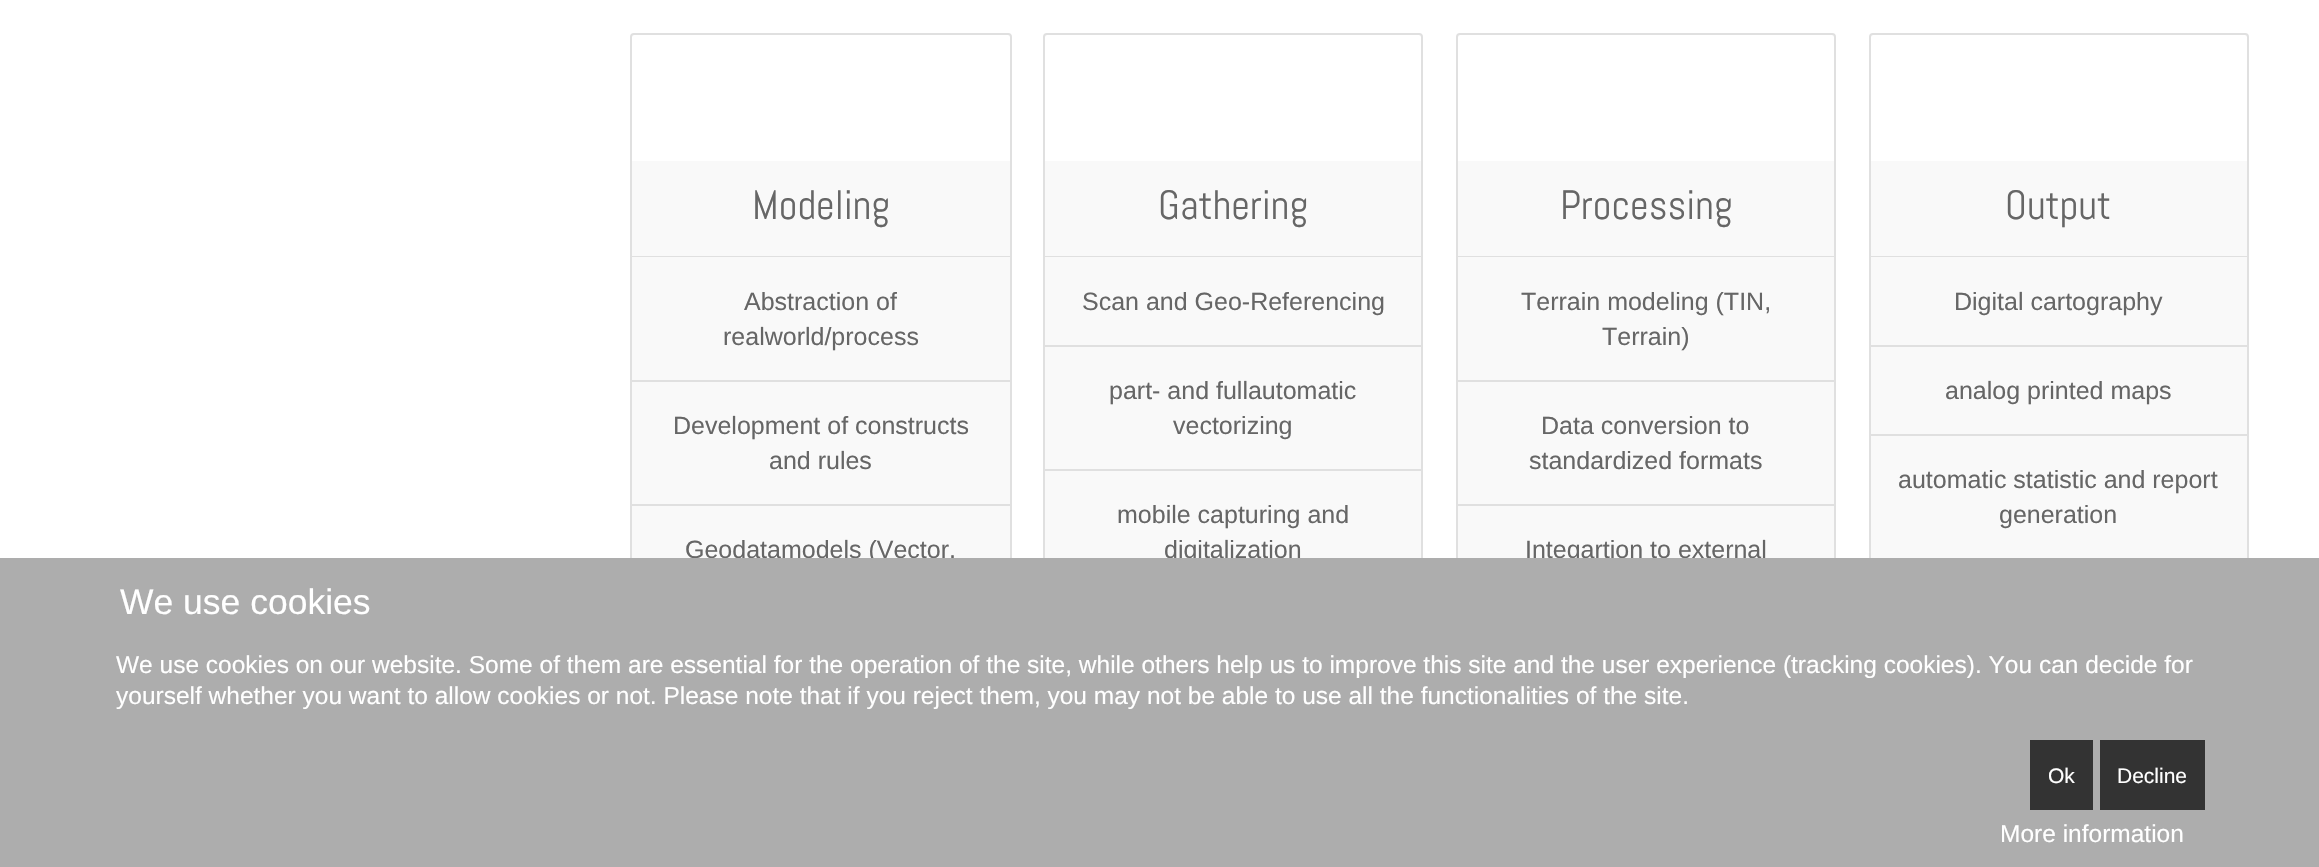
void draw(SkCanvas* canvas) {
    SkPaint paint;
    paint.setAntiAlias(true);
    canvas->clear(0xFFFFFFFF);
    paint.setStyle(SkPaint::kStroke_Style);
    paint.setStrokeWidth(2);
    paint.setColor(0xFFE0E0E0);
    canvas->drawRoundRect(SkRect::MakeXYWH(631, 34, 380, 684), 3, 3, paint);
    paint.setStyle(SkPaint::kFill_Style);
    paint.setColor(0xFFF9F9F9);
    canvas->drawRect(SkRect::MakeXYWH(632, 161, 378, 95), paint);
    paint.setColor(0xFFE0E0E0);
    canvas->drawRect(SkRect::MakeXYWH(632, 256, 378, 1), paint);
    SkFont font1(fontMgr->matchFamilyStyle("Abel", SkFontStyle::Normal()), 41);
    font1.setSubpixel(true);
    paint.setColor(0xFF666666);
    canvas->drawString("Modeling", 752, 219, font1, paint);
    paint.setColor(0xFFF9F9F9);
    canvas->drawRect(SkRect::MakeXYWH(632, 257, 378, 123), paint);
    paint.setColor(0xFFE0E0E0);
    canvas->drawRect(SkRect::MakeXYWH(632, 380, 378, 2), paint);
    SkFont font2(fontMgr->matchFamilyStyle("Liberation Sans", SkFontStyle::Normal()), 25);
    font2.setSubpixel(true);
    paint.setColor(0xFF666666);
    canvas->drawString("Abstraction of", 744, 310, font2, paint);
    canvas->drawString("realworld/process", 723, 345, font2, paint);
    paint.setColor(0xFFF9F9F9);
    canvas->drawRect(SkRect::MakeXYWH(632, 382, 378, 122), paint);
    paint.setColor(0xFFE0E0E0);
    canvas->drawRect(SkRect::MakeXYWH(632, 504, 378, 2), paint);
    paint.setColor(0xFF666666);
    canvas->drawString("Development of constructs", 673, 434, font2, paint);
    canvas->drawString("and rules", 769, 469, font2, paint);
    paint.setColor(0xFFF9F9F9);
    canvas->drawRect(SkRect::MakeXYWH(632, 506, 378, 52), paint);
    paint.setColor(0xFF666666);
    canvas->drawString("Geodatamodels (Vector,", 685, 558, font2, paint);
    paint.setStyle(SkPaint::kStroke_Style);
    paint.setColor(0xFFE0E0E0);
    canvas->drawRoundRect(SkRect::MakeXYWH(1044, 34, 378, 684), 3, 3, paint);
    paint.setStyle(SkPaint::kFill_Style);
    paint.setColor(0xFFF9F9F9);
    canvas->drawRect(SkRect::MakeXYWH(1045, 161, 376, 95), paint);
    paint.setColor(0xFFE0E0E0);
    canvas->drawRect(SkRect::MakeXYWH(1045, 256, 376, 1), paint);
    paint.setColor(0xFF666666);
    canvas->drawString("Gathering", 1158, 219, font1, paint);
    paint.setColor(0xFFF9F9F9);
    canvas->drawRect(SkRect::MakeXYWH(1045, 257, 376, 88), paint);
    paint.setColor(0xFFE0E0E0);
    canvas->drawRect(SkRect::MakeXYWH(1045, 345, 376, 2), paint);
    paint.setColor(0xFF666666);
    canvas->drawString("Scan and Geo-Referencing", 1082, 310, font2, paint);
    paint.setColor(0xFFF9F9F9);
    canvas->drawRect(SkRect::MakeXYWH(1045, 347, 376, 122), paint);
    paint.setColor(0xFFE0E0E0);
    canvas->drawRect(SkRect::MakeXYWH(1045, 469, 376, 2), paint);
    paint.setColor(0xFF666666);
    canvas->drawString("part- and fullautomatic", 1109, 399, font2, paint);
    canvas->drawString("vectorizing", 1173, 434, font2, paint);
    paint.setColor(0xFFF9F9F9);
    canvas->drawRect(SkRect::MakeXYWH(1045, 471, 376, 87), paint);
    paint.setColor(0xFF666666);
    canvas->drawString("mobile capturing and", 1117, 523, font2, paint);
    canvas->drawString("digitalization", 1164, 558, font2, paint);
    paint.setStyle(SkPaint::kStroke_Style);
    paint.setColor(0xFFE0E0E0);
    canvas->drawRoundRect(SkRect::MakeXYWH(1457, 34, 378, 754), 3, 3, paint);
    paint.setStyle(SkPaint::kFill_Style);
    paint.setColor(0xFFF9F9F9);
    canvas->drawRect(SkRect::MakeXYWH(1458, 161, 376, 95), paint);
    paint.setColor(0xFFE0E0E0);
    canvas->drawRect(SkRect::MakeXYWH(1458, 256, 376, 1), paint);
    paint.setColor(0xFF666666);
    canvas->drawString("Processing", 1560, 219, font1, paint);
    paint.setColor(0xFFF9F9F9);
    canvas->drawRect(SkRect::MakeXYWH(1458, 257, 376, 123), paint);
    paint.setColor(0xFFE0E0E0);
    canvas->drawRect(SkRect::MakeXYWH(1458, 380, 376, 2), paint);
    paint.setColor(0xFF666666);
    canvas->drawString("Terrain modeling (TIN,", 1521, 310, font2, paint);
    canvas->drawString("Terrain)", 1602, 345, font2, paint);
    paint.setColor(0xFFF9F9F9);
    canvas->drawRect(SkRect::MakeXYWH(1458, 382, 376, 122), paint);
    paint.setColor(0xFFE0E0E0);
    canvas->drawRect(SkRect::MakeXYWH(1458, 504, 376, 2), paint);
    paint.setColor(0xFF666666);
    canvas->drawString("Data conversion to", 1541, 434, font2, paint);
    canvas->drawString("standardized formats", 1529, 469, font2, paint);
    paint.setColor(0xFFF9F9F9);
    canvas->drawRect(SkRect::MakeXYWH(1458, 506, 376, 52), paint);
    paint.setColor(0xFF666666);
    canvas->drawString("Integartion to external", 1525, 558, font2, paint);
    paint.setStyle(SkPaint::kStroke_Style);
    paint.setColor(0xFFE0E0E0);
    canvas->drawRoundRect(SkRect::MakeXYWH(1870, 34, 378, 649), 3, 3, paint);
    paint.setStyle(SkPaint::kFill_Style);
    paint.setColor(0xFFF9F9F9);
    canvas->drawRect(SkRect::MakeXYWH(1871, 161, 376, 95), paint);
    paint.setColor(0xFFE0E0E0);
    canvas->drawRect(SkRect::MakeXYWH(1871, 256, 376, 1), paint);
    paint.setColor(0xFF666666);
    canvas->drawString("Output", 2005, 219, font1, paint);
    paint.setColor(0xFFF9F9F9);
    canvas->drawRect(SkRect::MakeXYWH(1871, 257, 376, 88), paint);
    paint.setColor(0xFFE0E0E0);
    canvas->drawRect(SkRect::MakeXYWH(1871, 345, 376, 2), paint);
    paint.setColor(0xFF666666);
    canvas->drawString("Digital cartography", 1954, 310, font2, paint);
    paint.setColor(0xFFF9F9F9);
    canvas->drawRect(SkRect::MakeXYWH(1871, 347, 376, 87), paint);
    paint.setColor(0xFFE0E0E0);
    canvas->drawRect(SkRect::MakeXYWH(1871, 434, 376, 2), paint);
    paint.setColor(0xFF666666);
    canvas->drawString("analog printed maps", 1945, 399, font2, paint);
    paint.setColor(0xFFF9F9F9);
    canvas->drawRect(SkRect::MakeXYWH(1871, 436, 376, 122), paint);
    paint.setColor(0xFF666666);
    canvas->drawString("automatic statistic and report", 1898, 488, font2, paint);
    canvas->drawString("generation", 1999, 523, font2, paint);
    paint.setColor(0xFFADADAD);
    canvas->drawRect(SkRect::MakeXYWH(0, 558, 2319, 309), paint);
    SkFont font3(fontMgr->matchFamilyStyle("Liberation Sans", SkFontStyle::Normal()), 35.5f);
    font3.setSubpixel(true);
    paint.setColor(0xFFFFFFFF);
    canvas->drawString("We use cookies", 120, 614, font3, paint);
    SkFont font4(fontMgr->matchFamilyStyle("Liberation Sans", SkFontStyle::Normal()), 24.5f);
    font4.setSubpixel(true);
    canvas->drawString("We use cookies on our website. Some of them are essential for the operation of the site, while others help us to improve this site and the user experience (tracking cookies). You can decide for", 116, 673, font4, paint);
    canvas->drawString("yourself whether you want to allow cookies or not. Please note that if you reject them, you may not be able to use all the functionalities of the site.", 116, 704, font4, paint);
    paint.setColor(0xFF333333);
    canvas->drawRect(SkRect::MakeXYWH(2030, 740, 63, 70), paint);
    SkFont font5(fontMgr->matchFamilyStyle("Liberation Sans", SkFontStyle::Normal()), 21);
    font5.setSubpixel(true);
    paint.setColor(0xFFFFFFFF);
    canvas->drawString("Ok", 2048, 783, font5, paint);
    paint.setColor(0xFF333333);
    canvas->drawRect(SkRect::MakeXYWH(2100, 740, 105, 70), paint);
    paint.setColor(0xFFFFFFFF);
    canvas->drawString("Decline", 2117, 783, font5, paint);
    canvas->drawString("More information", 2000, 842, font4, paint);
}
